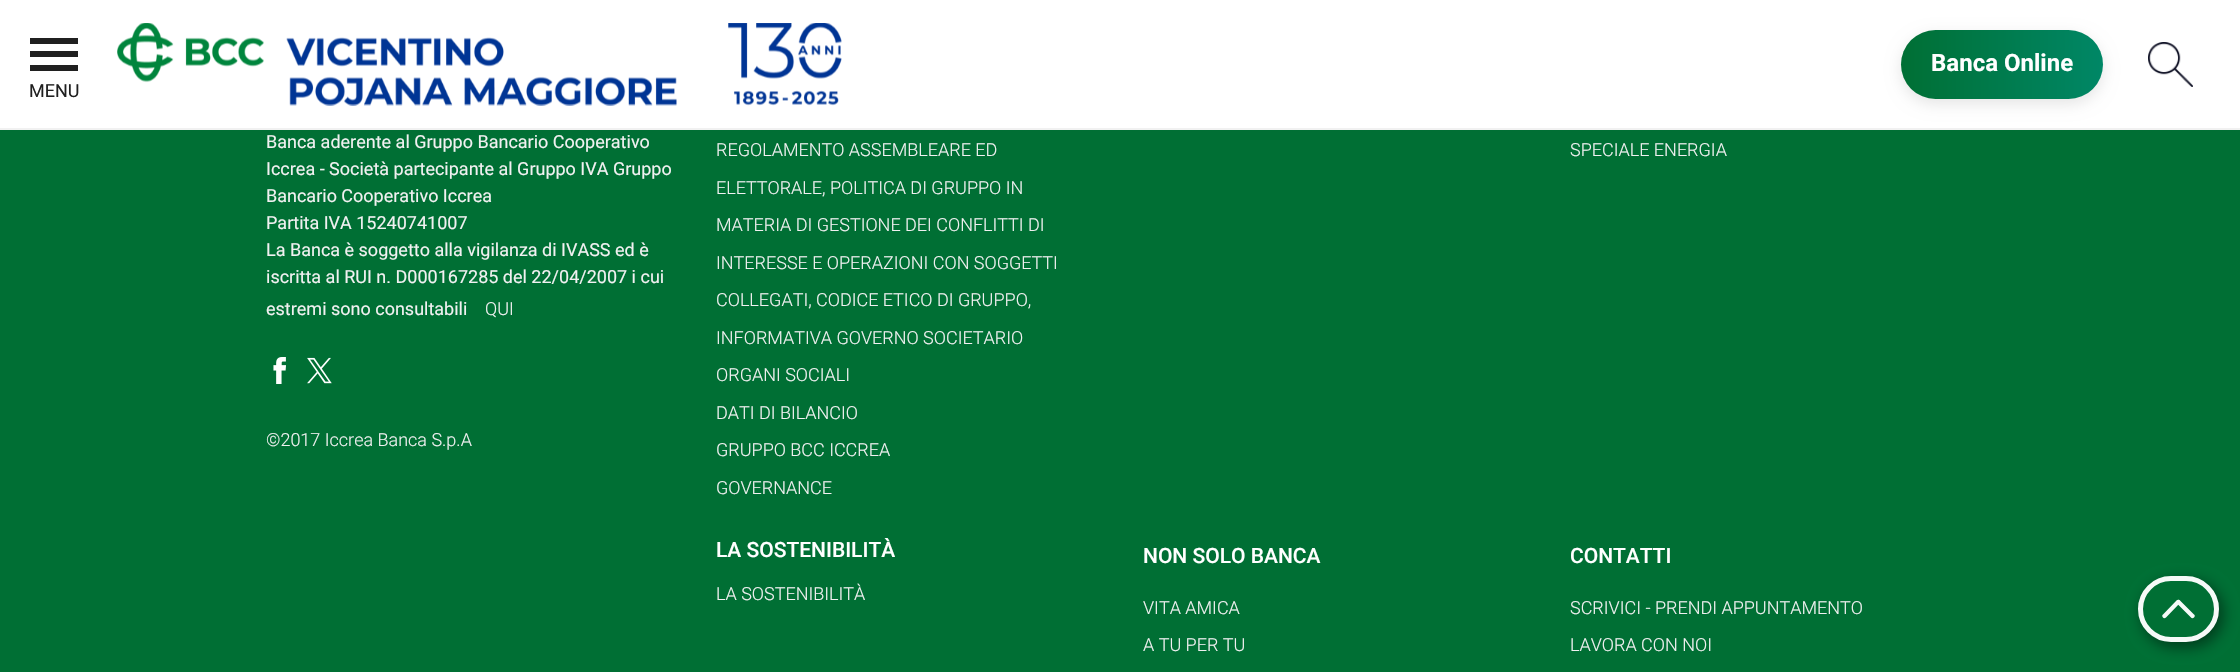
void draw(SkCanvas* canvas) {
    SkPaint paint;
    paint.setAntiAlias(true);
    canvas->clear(0xFF006F34);
    paint.setColor(0xFFFFFFFF);
    canvas->drawRect(SkRect::MakeXYWH(0, 0, 2240, 128), paint);
    paint.setColor(0xFFF1F1F1);
    canvas->drawRect(SkRect::MakeXYWH(0, 128, 2240, 2), paint);
    canvas->drawImageRect(SkImages::DeferredFromEncodedData(SkData::MakeFromFileName("img1.png")), SkRect::MakeXYWH(117, 23, 725, 83), SkSamplingOptions());
    paint.setColor(0x1A000000);
    paint.setMaskFilter(SkMaskFilter::MakeBlur(kNormal_SkBlurStyle, 7.5f));
    canvas->drawRoundRect(SkRect::MakeXYWH(1901, 35, 202, 69), 34.5f, 34.5f, paint);
    paint.setMaskFilter(nullptr);
    {
        const SkColor colors[] = {0xFF008766, 0xFF006F34};
        const float stops[] = {0, 1};
        const SkPoint ends[] = {{2103, 64}, {1901, 65}};
        paint.setShader(SkGradientShader::MakeLinear(ends, colors, stops, 2, SkTileMode::kClamp));
        paint.setAlpha(255);
    }
    canvas->drawRoundRect(SkRect::MakeXYWH(1901, 30, 202, 69), 34.5f, 34.5f, paint);
    SkFont font1(fontMgr->matchFamilyStyle("Roboto", SkFontStyle::Bold()), 24);
    font1.setSubpixel(true);
    paint.setShader(nullptr);
    paint.setColor(0xFFFFFFFF);
    canvas->drawString("Banca Online", 1931, 71, font1, paint);
    canvas->drawImageRect(SkImages::DeferredFromEncodedData(SkData::MakeFromFileName("img2.png")), SkRect::MakeXYWH(2148, 42, 45, 45), SkSamplingOptions());
    paint.setColor(0xFF202020);
    canvas->drawRect(SkRect::MakeXYWH(30, 51, 48, 6), paint);
    canvas->drawRect(SkRect::MakeXYWH(30, 38, 48, 6), paint);
    canvas->drawRect(SkRect::MakeXYWH(30, 65, 48, 6), paint);
    SkFont font2(fontMgr->matchFamilyStyle("Roboto", SkFontStyle::Normal()), 18);
    font2.setSubpixel(true);
    canvas->drawString("MENU", 29, 97, font2, paint);
    paint.setColor(0xFFF1F1F1);
    canvas->drawString("Banca aderente al Gruppo Bancario Cooperativo", 266, 148, font2, paint);
    canvas->drawString("Iccrea - Società partecipante al Gruppo IVA Gruppo", 266, 175, font2, paint);
    canvas->drawString("Bancario Cooperativo Iccrea", 266, 202, font2, paint);
    canvas->drawString("Partita IVA 15240741007", 266, 229, font2, paint);
    canvas->drawString("La Banca è soggetto alla vigilanza di IVASS ed è", 266, 256, font2, paint);
    canvas->drawString("iscritta al RUI n. D000167285 del 22/04/2007 i cui", 266, 283, font2, paint);
    canvas->drawString("estremi sono consultabili", 266, 315, font2, paint);
    SkFont font3(fontMgr->matchFamilyStyle("Roboto", SkFontStyle(300, SkFontStyle::kNormal_Width, SkFontStyle::kUpright_Slant)), 18);
    font3.setSubpixel(true);
    canvas->drawString("QUI", 485, 315, font3, paint);
    canvas->drawImageRect(SkImages::DeferredFromEncodedData(SkData::MakeFromFileName("img3.png")), SkRect::MakeXYWH(273, 357, 13, 27), SkSamplingOptions());
    canvas->drawImageRect(SkImages::DeferredFromEncodedData(SkData::MakeFromFileName("img4.png")), SkRect::MakeXYWH(307, 357, 25, 27), SkSamplingOptions());
    canvas->drawString("©2017 Iccrea Banca S.p.A", 266, 446, font3, paint);
    canvas->drawString("REGOLAMENTO ASSEMBLEARE ED", 716, 156, font3, paint);
    canvas->drawString("ELETTORALE, POLITICA DI GRUPPO IN", 716, 194, font3, paint);
    canvas->drawString("MATERIA DI GESTIONE DEI CONFLITTI DI", 716, 231, font3, paint);
    canvas->drawString("INTERESSE E OPERAZIONI CON SOGGETTI", 716, 269, font3, paint);
    canvas->drawString("COLLEGATI, CODICE ETICO DI GRUPPO,", 716, 306, font3, paint);
    canvas->drawString("INFORMATIVA GOVERNO SOCIETARIO", 716, 344, font3, paint);
    canvas->drawString("ORGANI SOCIALI", 716, 381, font3, paint);
    canvas->drawString("DATI DI BILANCIO", 716, 419, font3, paint);
    canvas->drawString("GRUPPO BCC ICCREA", 716, 456, font3, paint);
    canvas->drawString("GOVERNANCE", 716, 494, font3, paint);
    canvas->drawString("SPECIALE ENERGIA", 1570, 156, font3, paint);
    SkFont font4(fontMgr->matchFamilyStyle("Roboto", SkFontStyle(500, SkFontStyle::kNormal_Width, SkFontStyle::kUpright_Slant)), 21);
    font4.setSubpixel(true);
    paint.setColor(0xFFFFFFFF);
    canvas->drawString("LA SOSTENIBILITÀ", 716, 557, font4, paint);
    paint.setColor(0xFFF1F1F1);
    canvas->drawString("LA SOSTENIBILITÀ", 716, 600, font3, paint);
    paint.setColor(0xFFFFFFFF);
    canvas->drawString("NON SOLO BANCA", 1143, 563, font4, paint);
    paint.setColor(0xFFF1F1F1);
    canvas->drawString("VITA AMICA", 1143, 614, font3, paint);
    canvas->drawString("A TU PER TU", 1143, 651, font3, paint);
    paint.setColor(0xFFFFFFFF);
    canvas->drawString("CONTATTI", 1570, 563, font4, paint);
    paint.setColor(0xFFF1F1F1);
    canvas->drawString("SCRIVICI - PRENDI APPUNTAMENTO", 1570, 614, font3, paint);
    canvas->drawString("LAVORA CON NOI", 1570, 651, font3, paint);
    paint.setColor(0x80000402);
    paint.setMaskFilter(SkMaskFilter::MakeBlur(kNormal_SkBlurStyle, 7.5f));
    canvas->drawRoundRect(SkRect::MakeXYWH(2142, 581, 81, 66), 33, 33, paint);
    paint.setMaskFilter(nullptr);
    paint.setColor(0xFF006F34);
    canvas->drawRoundRect(SkRect::MakeXYWH(2140.5f, 578.5f, 76, 61), 30.5f, 30.5f, paint);
    paint.setStyle(SkPaint::kStroke_Style);
    paint.setStrokeWidth(5);
    paint.setColor(0xFFF6FAF8);
    canvas->drawRoundRect(SkRect::MakeXYWH(2140.5f, 578.5f, 76, 61), 30.5f, 30.5f, paint);
    paint.setStyle(SkPaint::kFill_Style);
    canvas->drawPath(SkPathBuilder().moveTo(2179.5f, 600.5f).cubicTo(2180.5f, 601.5f, 2180.5f, 603, 2179.5f, 603.5f).lineTo(2166, 617.5f).cubicTo(2165, 618.5f, 2163.5f, 618.5f, 2163, 617.5f).cubicTo(2162, 616.5f, 2162, 615, 2163, 614.5f).lineTo(2176.5f, 600.5f).cubicTo(2177.5f, 599.5f, 2179, 599.5f, 2179.5f, 600.5f).close().detach(), paint);
    canvas->drawPath(SkPathBuilder().moveTo(2177, 600.5f).cubicTo(2178, 599.5f, 2179.5f, 599.5f, 2180, 600.5f).lineTo(2194, 614.5f).cubicTo(2195, 615, 2195, 616.5f, 2194, 617.5f).cubicTo(2193, 618.5f, 2191.5f, 618.5f, 2191, 617.5f).lineTo(2177, 603.5f).cubicTo(2176, 603, 2176, 601.5f, 2177, 600.5f).close().detach(), paint);
}
